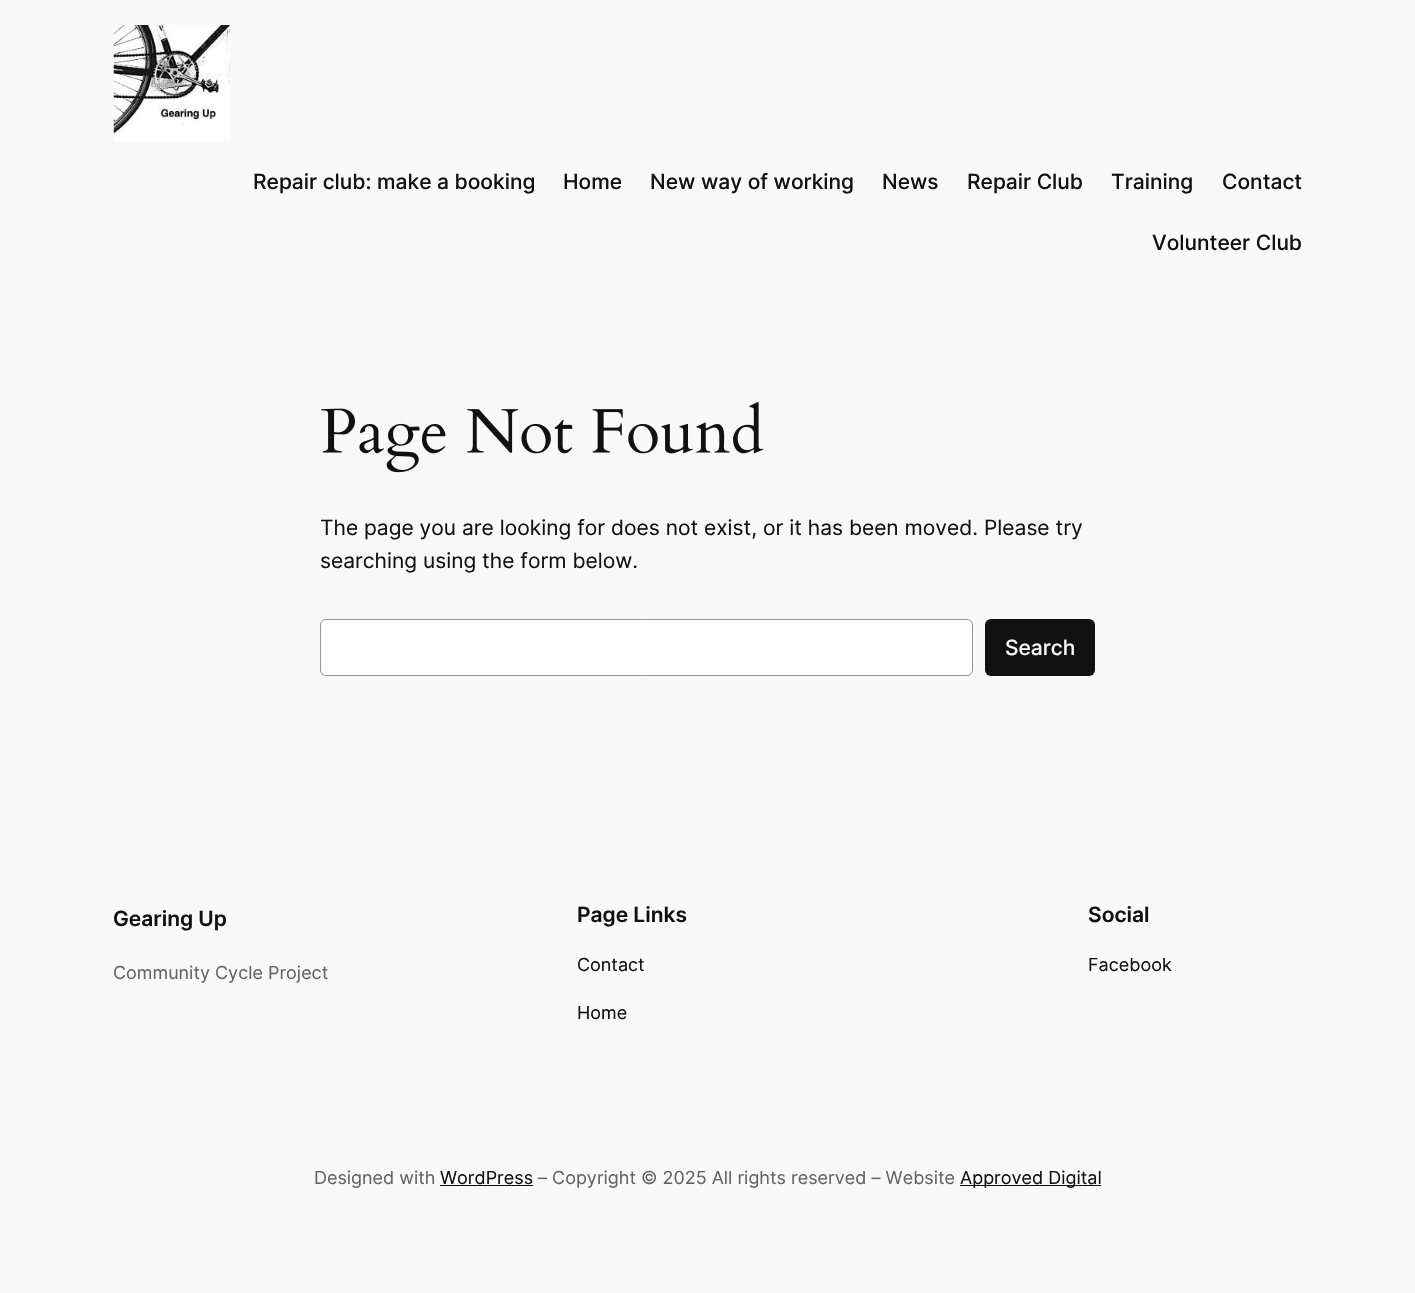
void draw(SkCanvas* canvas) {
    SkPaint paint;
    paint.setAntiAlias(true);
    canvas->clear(0xFFF9F9F9);
    canvas->drawImageRect(SkImages::DeferredFromEncodedData(SkData::MakeFromFileName("img1.png")), SkRect::MakeXYWH(113, 25, 117, 116), SkSamplingOptions());
    SkFont font1(fontMgr->matchFamilyStyle("Inter", SkFontStyle(500, SkFontStyle::kNormal_Width, SkFontStyle::kUpright_Slant)), 21);
    font1.setSubpixel(true);
    paint.setColor(0xFF111111);
    canvas->drawString("Repair club: make a booking", 253, 189, font1, paint);
    canvas->drawString("Home", 563, 189, font1, paint);
    canvas->drawString("New way of working", 650, 189, font1, paint);
    canvas->drawString("News", 882, 189, font1, paint);
    canvas->drawString("Repair Club", 967, 189, font1, paint);
    canvas->drawString("Training", 1111, 189, font1, paint);
    canvas->drawString("Contact", 1222, 189, font1, paint);
    canvas->drawString("Volunteer Club", 1152, 250, font1, paint);
    canvas->drawImageRect(SkImages::DeferredFromEncodedData(SkData::MakeFromFileName("img2.png")), SkRect::MakeXYWH(321, 401, 443, 72), SkSamplingOptions());
    SkFont font2(fontMgr->matchFamilyStyle("Inter", SkFontStyle::Normal()), 21);
    font2.setSubpixel(true);
    canvas->drawString("The page you are looking for does not exist, or it has been moved. Please try", 320, 535, font2, paint);
    canvas->drawString("searching using the form below.", 320, 568, font2, paint);
    paint.setColor(0xFFFFFFFF);
    canvas->drawRoundRect(SkRect::MakeXYWH(320.5f, 619.5f, 652, 56), 5.5f, 5.5f, paint);
    paint.setStyle(SkPaint::kStroke_Style);
    paint.setStrokeWidth(1);
    paint.setColor(0xFF949494);
    canvas->drawRoundRect(SkRect::MakeXYWH(320.5f, 619.5f, 652, 56), 5.5f, 5.5f, paint);
    paint.setStyle(SkPaint::kFill_Style);
    paint.setColor(0xFF111111);
    canvas->drawRoundRect(SkRect::MakeXYWH(985, 619, 110, 57), 6, 6, paint);
    paint.setColor(0xFFF9F9F9);
    canvas->drawString("Search", 1005, 655, font1, paint);
    SkFont font3(fontMgr->matchFamilyStyle("Inter", SkFontStyle(600, SkFontStyle::kNormal_Width, SkFontStyle::kUpright_Slant)), 21);
    font3.setSubpixel(true);
    paint.setColor(0xFF111111);
    canvas->drawString("Gearing Up", 113, 926, font3, paint);
    SkFont font4(fontMgr->matchFamilyStyle("Inter", SkFontStyle::Normal()), 18);
    font4.setSubpixel(true);
    paint.setColor(0xFF636363);
    canvas->drawString("Community Cycle Project", 113, 979, font4, paint);
    paint.setColor(0xFF111111);
    canvas->drawString("Page Links", 577, 922, font3, paint);
    canvas->drawString("Contact", 577, 971, font4, paint);
    canvas->drawString("Home", 577, 1019, font4, paint);
    canvas->drawString("Social", 1088, 922, font3, paint);
    canvas->drawString("Facebook", 1088, 971, font4, paint);
    paint.setColor(0xFF636363);
    canvas->drawString("Designed with", 314, 1184, font4, paint);
    paint.setColor(0xFF111111);
    canvas->drawString("WordPress", 440, 1184, font4, paint);
    canvas->drawRect(SkRect::MakeXYWH(440, 1185, 93, 1), paint);
    paint.setColor(0xFF636363);
    canvas->drawString("– Copyright © 2025 All rights reserved – Website", 538, 1184, font4, paint);
    paint.setColor(0xFF111111);
    canvas->drawRect(SkRect::MakeXYWH(960, 1185, 141, 1), paint);
    canvas->drawString("Approved Digital", 960, 1184, font4, paint);
}
